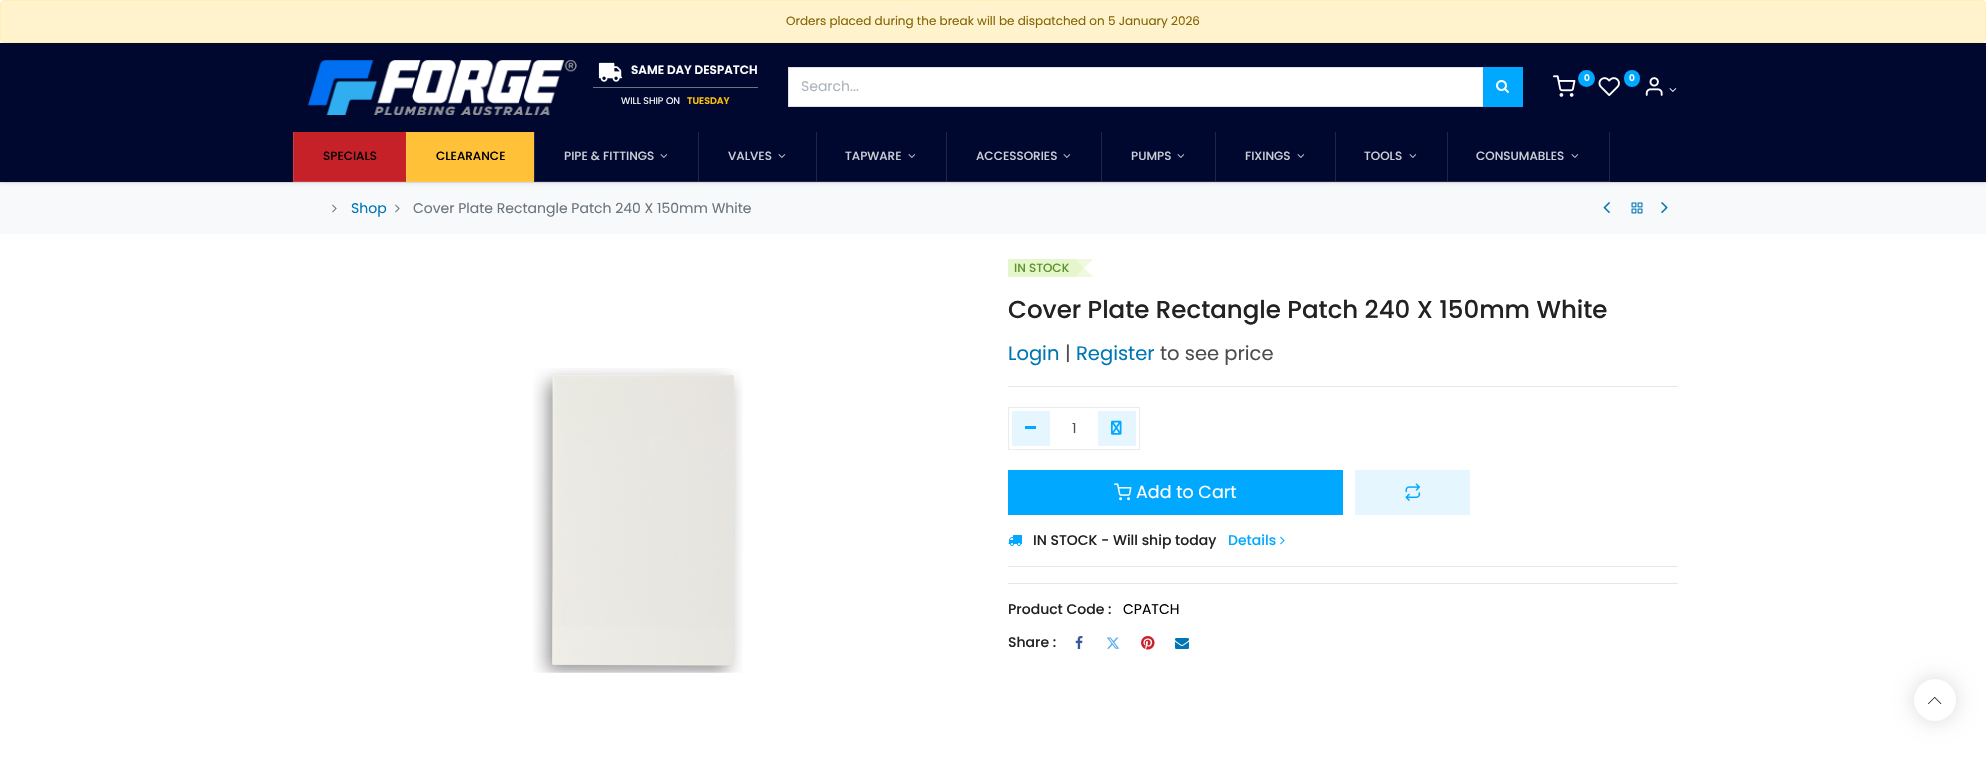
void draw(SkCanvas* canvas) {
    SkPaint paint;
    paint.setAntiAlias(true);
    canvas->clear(0xFFFFFFFF);
    paint.setColor(0xFFFFF3CD);
    canvas->drawRoundRect(SkRect::MakeXYWH(0.5f, 0.5f, 1985, 42), 3.5f, 3.5f, paint);
    paint.setStyle(SkPaint::kStroke_Style);
    paint.setStrokeWidth(1);
    paint.setColor(0xFFFFEEBA);
    canvas->drawRoundRect(SkRect::MakeXYWH(0.5f, 0.5f, 1985, 42), 3.5f, 3.5f, paint);
    SkFont font1(fontMgr->matchFamilyStyle("Poppins", SkFontStyle::Normal()), 12);
    font1.setSubpixel(true);
    paint.setStyle(SkPaint::kFill_Style);
    paint.setColor(0xFF856404);
    canvas->drawString("Orders placed during the break will be dispatched on 5 January 2026", 786, 25, font1, paint);
    paint.setColor(0xFF010830);
    canvas->drawRect(SkRect::MakeXYWH(0, 43, 1986, 88), paint);
    paint.setColor(0xFF01072A);
    canvas->drawRect(SkRect::MakeXYWH(0, 131, 1986, 1), paint);
    canvas->drawImageRect(SkImages::DeferredFromEncodedData(SkData::MakeFromFileName("img1.png")), SkRect::MakeXYWH(308, 60, 269, 55), SkSamplingOptions());
    canvas->drawImageRect(SkImages::DeferredFromEncodedData(SkData::MakeFromFileName("img2.png")), SkRect::MakeXYWH(598, 62, 25, 20), SkSamplingOptions());
    SkFont font2(fontMgr->matchFamilyStyle("Poppins", SkFontStyle(600, SkFontStyle::kNormal_Width, SkFontStyle::kUpright_Slant)), 12);
    font2.setSubpixel(true);
    paint.setColor(0xFFFFFFFF);
    canvas->drawString("SAME DAY DESPATCH", 631, 74, font2, paint);
    paint.setColor(0xFF6C757D);
    canvas->drawRect(SkRect::MakeXYWH(593, 87, 165, 1), paint);
    SkFont font3(fontMgr->matchFamilyStyle("Poppins", SkFontStyle::Normal()), 9.5f);
    font3.setSubpixel(true);
    paint.setColor(0xFFFFFFFF);
    canvas->drawString("WILL SHIP ON", 621, 104, font3, paint);
    SkFont font4(fontMgr->matchFamilyStyle("Poppins", SkFontStyle(600, SkFontStyle::kNormal_Width, SkFontStyle::kUpright_Slant)), 9.5f);
    font4.setSubpixel(true);
    paint.setColor(0xFFFFC107);
    canvas->drawString("TUESDAY", 687, 104, font4, paint);
    canvas->drawImageRect(SkImages::DeferredFromEncodedData(SkData::MakeFromFileName("img3.png")), SkRect::MakeXYWH(1553, 75, 23, 22), SkSamplingOptions());
    paint.setColor(0xFF01A8FF);
    canvas->drawCircle(1586.5f, 78.5f, 8.5f, paint);
    SkFont font5(fontMgr->matchFamilyStyle("Poppins", SkFontStyle(600, SkFontStyle::kNormal_Width, SkFontStyle::kUpright_Slant)), 9);
    font5.setSubpixel(true);
    paint.setColor(0xFFFFFFFF);
    canvas->drawString("0", 1584, 81, font5, paint);
    canvas->drawImageRect(SkImages::DeferredFromEncodedData(SkData::MakeFromFileName("img4.png")), SkRect::MakeXYWH(1598, 77, 22, 19), SkSamplingOptions());
    paint.setColor(0xFF01A8FF);
    canvas->drawRoundRect(SkRect::MakeXYWH(1624, 70, 16, 17), 8, 8, paint);
    paint.setColor(0xFFFFFFFF);
    canvas->drawString("0", 1629, 81, font5, paint);
    canvas->drawImageRect(SkImages::DeferredFromEncodedData(SkData::MakeFromFileName("img5.png")), SkRect::MakeXYWH(1645, 77, 18, 19), SkSamplingOptions());
    canvas->drawImageRect(SkImages::DeferredFromEncodedData(SkData::MakeFromFileName("img6.png")), SkRect::MakeXYWH(1669, 88, 8, 4), SkSamplingOptions());
    canvas->drawRect(SkRect::MakeXYWH(788.5f, 67.5f, 695, 39), paint);
    paint.setStyle(SkPaint::kStroke_Style);
    paint.setColor(0xFFDEE2E6);
    canvas->drawRect(SkRect::MakeXYWH(788.5f, 67.5f, 695, 39), paint);
    SkFont font6(fontMgr->matchFamilyStyle("Poppins", SkFontStyle::Normal()), 14);
    font6.setSubpixel(true);
    paint.setStyle(SkPaint::kFill_Style);
    paint.setColor(0xFFADB5BD);
    canvas->drawString("Search...", 801, 91, font6, paint);
    paint.setColor(0xFF01A8FF);
    canvas->drawRect(SkRect::MakeXYWH(1483, 67, 40, 40), paint);
    canvas->drawImageRect(SkImages::DeferredFromEncodedData(SkData::MakeFromFileName("img7.png")), SkRect::MakeXYWH(1496, 80, 13, 13), SkSamplingOptions());
    paint.setColor(0xFFF8F9FA);
    canvas->drawRect(SkRect::MakeXYWH(0, 183, 1986, 51), paint);
    paint.setColor(0xFFE5E5E5);
    canvas->drawRect(SkRect::MakeXYWH(0, 182, 1986, 1), paint);
    paint.setColor(0x12000000);
    paint.setMaskFilter(SkMaskFilter::MakeBlur(kNormal_SkBlurStyle, 2));
    canvas->drawRect(SkRect::MakeXYWH(0, 134, 1986, 50), paint);
    paint.setMaskFilter(nullptr);
    paint.setColor(0xFF010830);
    canvas->drawRect(SkRect::MakeXYWH(0, 132, 1986, 50), paint);
    paint.setColor(0xFFC62128);
    canvas->drawRect(SkRect::MakeXYWH(293, 132, 113, 50), paint);
    paint.setColor(0xFFCD3C42);
    canvas->drawPath(SkPathBuilder().moveTo(406, 182).lineTo(293, 182).lineTo(294, 181).lineTo(406, 181).close().detach(), paint);
    paint.setColor(0x1FFFFFFF);
    canvas->drawPath(SkPathBuilder().moveTo(293, 182).lineTo(293, 132).lineTo(294, 132).lineTo(294, 181).close().detach(), paint);
    SkFont font7(fontMgr->matchFamilyStyle("Poppins", SkFontStyle(500, SkFontStyle::kNormal_Width, SkFontStyle::kUpright_Slant)), 12);
    font7.setSubpixel(true);
    paint.setColor(0xFF000000);
    canvas->drawString("SPECIALS", 323, 160, font7, paint);
    paint.setColor(0xFFFFC138);
    canvas->drawRect(SkRect::MakeXYWH(406, 132, 128, 50), paint);
    paint.setColor(0xFFFFC850);
    canvas->drawPath(SkPathBuilder().moveTo(534, 182).lineTo(406, 182).lineTo(407, 181).lineTo(534, 181).close().detach(), paint);
    paint.setColor(0x1FFFFFFF);
    canvas->drawPath(SkPathBuilder().moveTo(406, 182).lineTo(406, 132).lineTo(407, 132).lineTo(407, 181).close().detach(), paint);
    paint.setColor(0xFF000000);
    canvas->drawString("CLEARANCE", 436, 160, font7, paint);
    paint.setColor(0xFF1F2649);
    canvas->drawPath(SkPathBuilder().moveTo(698, 182).lineTo(534, 182).lineTo(535, 181).lineTo(698, 181).close().detach(), paint);
    paint.setColor(0x1FFFFFFF);
    canvas->drawPath(SkPathBuilder().moveTo(534, 182).lineTo(534, 132).lineTo(535, 132).lineTo(535, 181).close().detach(), paint);
    paint.setColor(0xFFCCCED6);
    canvas->drawString("PIPE & FITTINGS", 564, 160, font7, paint);
    canvas->drawImageRect(SkImages::DeferredFromEncodedData(SkData::MakeFromFileName("img8.png")), SkRect::MakeXYWH(660, 154, 8, 4), SkSamplingOptions());
    paint.setColor(0xFF1F2649);
    canvas->drawPath(SkPathBuilder().moveTo(816, 182).lineTo(698, 182).lineTo(699, 181).lineTo(816, 181).close().detach(), paint);
    paint.setColor(0x1FFFFFFF);
    canvas->drawPath(SkPathBuilder().moveTo(698, 182).lineTo(698, 132).lineTo(699, 132).lineTo(699, 181).close().detach(), paint);
    paint.setColor(0xFFCCCED6);
    canvas->drawString("VALVES", 728, 160, font7, paint);
    canvas->drawImageRect(SkImages::DeferredFromEncodedData(SkData::MakeFromFileName("img8.png")), SkRect::MakeXYWH(778, 154, 8, 4), SkSamplingOptions());
    paint.setColor(0xFF1F2649);
    canvas->drawPath(SkPathBuilder().moveTo(946, 182).lineTo(816, 182).lineTo(817, 181).lineTo(946, 181).close().detach(), paint);
    paint.setColor(0x1FFFFFFF);
    canvas->drawPath(SkPathBuilder().moveTo(816, 182).lineTo(816, 132).lineTo(817, 132).lineTo(817, 181).close().detach(), paint);
    paint.setColor(0xFFCCCED6);
    canvas->drawString("TAPWARE", 845, 160, font7, paint);
    canvas->drawImageRect(SkImages::DeferredFromEncodedData(SkData::MakeFromFileName("img8.png")), SkRect::MakeXYWH(908, 154, 8, 4), SkSamplingOptions());
    paint.setColor(0xFF1F2649);
    canvas->drawPath(SkPathBuilder().moveTo(1101, 182).lineTo(946, 182).lineTo(947, 181).lineTo(1101, 181).close().detach(), paint);
    paint.setColor(0x1FFFFFFF);
    canvas->drawPath(SkPathBuilder().moveTo(946, 182).lineTo(946, 132).lineTo(947, 132).lineTo(947, 181).close().detach(), paint);
    paint.setColor(0xFFCCCED6);
    canvas->drawString("ACCESSORIES", 976, 160, font7, paint);
    canvas->drawImageRect(SkImages::DeferredFromEncodedData(SkData::MakeFromFileName("img8.png")), SkRect::MakeXYWH(1063, 154, 8, 4), SkSamplingOptions());
    paint.setColor(0xFF1F2649);
    canvas->drawPath(SkPathBuilder().moveTo(1215, 182).lineTo(1101, 182).lineTo(1102, 181).lineTo(1215, 181).close().detach(), paint);
    paint.setColor(0x1FFFFFFF);
    canvas->drawPath(SkPathBuilder().moveTo(1101, 182).lineTo(1101, 132).lineTo(1102, 132).lineTo(1102, 181).close().detach(), paint);
    paint.setColor(0xFFCCCED6);
    canvas->drawString("PUMPS", 1131, 160, font7, paint);
    canvas->drawImageRect(SkImages::DeferredFromEncodedData(SkData::MakeFromFileName("img8.png")), SkRect::MakeXYWH(1177, 154, 8, 4), SkSamplingOptions());
    paint.setColor(0xFF1F2649);
    canvas->drawPath(SkPathBuilder().moveTo(1335, 182).lineTo(1215, 182).lineTo(1216, 181).lineTo(1335, 181).close().detach(), paint);
    paint.setColor(0x1FFFFFFF);
    canvas->drawPath(SkPathBuilder().moveTo(1215, 182).lineTo(1215, 132).lineTo(1216, 132).lineTo(1216, 181).close().detach(), paint);
    paint.setColor(0xFFCCCED6);
    canvas->drawString("FIXINGS", 1245, 160, font7, paint);
    canvas->drawImageRect(SkImages::DeferredFromEncodedData(SkData::MakeFromFileName("img8.png")), SkRect::MakeXYWH(1297, 154, 8, 4), SkSamplingOptions());
    paint.setColor(0xFF1F2649);
    canvas->drawPath(SkPathBuilder().moveTo(1447, 182).lineTo(1335, 182).lineTo(1336, 181).lineTo(1447, 181).close().detach(), paint);
    paint.setColor(0x1FFFFFFF);
    canvas->drawPath(SkPathBuilder().moveTo(1335, 182).lineTo(1335, 132).lineTo(1336, 132).lineTo(1336, 181).close().detach(), paint);
    paint.setColor(0xFFCCCED6);
    canvas->drawString("TOOLS", 1364, 160, font7, paint);
    canvas->drawImageRect(SkImages::DeferredFromEncodedData(SkData::MakeFromFileName("img8.png")), SkRect::MakeXYWH(1409, 154, 8, 4), SkSamplingOptions());
    paint.setColor(0xFF1F2649);
    canvas->drawPath(SkPathBuilder().moveTo(1610, 132).lineTo(1610, 182).lineTo(1609, 181).lineTo(1609, 132).close().detach(), paint);
    paint.setColor(0x1FFFFFFF);
    canvas->drawPath(SkPathBuilder().moveTo(1610, 182).lineTo(1447, 182).lineTo(1448, 181).lineTo(1609, 181).close().detach(), paint);
    canvas->drawPath(SkPathBuilder().moveTo(1447, 182).lineTo(1447, 132).lineTo(1448, 132).lineTo(1448, 181).close().detach(), paint);
    paint.setColor(0xFFCCCED6);
    canvas->drawString("CONSUMABLES", 1476, 160, font7, paint);
    canvas->drawImageRect(SkImages::DeferredFromEncodedData(SkData::MakeFromFileName("img8.png")), SkRect::MakeXYWH(1571, 154, 8, 4), SkSamplingOptions());
    canvas->drawImageRect(SkImages::DeferredFromEncodedData(SkData::MakeFromFileName("img9.png")), SkRect::MakeXYWH(332, 204, 5, 9), SkSamplingOptions());
    paint.setColor(0xFF0076B4);
    canvas->drawString("Shop", 351, 213, font6, paint);
    canvas->drawImageRect(SkImages::DeferredFromEncodedData(SkData::MakeFromFileName("img9.png")), SkRect::MakeXYWH(395, 204, 5, 9), SkSamplingOptions());
    paint.setColor(0xFF6C757D);
    canvas->drawString("Cover Plate Rectangle Patch 240 X 150mm White", 413, 213, font6, paint);
    canvas->drawImageRect(SkImages::DeferredFromEncodedData(SkData::MakeFromFileName("img10.png")), SkRect::MakeXYWH(1603, 202, 7, 12), SkSamplingOptions());
    canvas->drawImageRect(SkImages::DeferredFromEncodedData(SkData::MakeFromFileName("img11.png")), SkRect::MakeXYWH(1631, 202, 12, 12), SkSamplingOptions());
    canvas->drawImageRect(SkImages::DeferredFromEncodedData(SkData::MakeFromFileName("img12.png")), SkRect::MakeXYWH(1661, 202, 7, 12), SkSamplingOptions());
    canvas->drawImageRect(SkImages::DeferredFromEncodedData(SkData::MakeFromFileName("img13.png")), SkRect::MakeXYWH(533, 368, 210, 305), SkSamplingOptions());
    paint.setColor(0xFFE5F5CC);
    canvas->drawRect(SkRect::MakeXYWH(1008, 259, 67, 18), paint);
    paint.setColor(0xFF5F942B);
    canvas->drawString("IN STOCK", 1014, 272, font7, paint);
    paint.setColor(0xFFEFF9DF);
    canvas->drawPath(SkPathBuilder().moveTo(1075, 259).lineTo(1093, 259).lineTo(1084, 268).close().moveTo(1093, 277).lineTo(1075, 277).lineTo(1084, 268).close().detach(), paint);
    paint.setColor(0xCCDFF2BF);
    canvas->drawPath(SkPathBuilder().moveTo(1075, 277).lineTo(1075, 259).lineTo(1084, 268).close().detach(), paint);
    SkFont font8(fontMgr->matchFamilyStyle("Poppins", SkFontStyle(500, SkFontStyle::kNormal_Width, SkFontStyle::kUpright_Slant)), 24.5f);
    font8.setSubpixel(true);
    paint.setColor(0xFF222222);
    canvas->drawString("Cover Plate Rectangle Patch 240 X 150mm White", 1008, 318, font8, paint);
    SkFont font9(fontMgr->matchFamilyStyle("Poppins", SkFontStyle::Normal()), 19.5f);
    font9.setSubpixel(true);
    paint.setColor(0xFF0076B4);
    canvas->drawString("Login", 1008, 360, font9, paint);
    paint.setColor(0xFF4D4D4D);
    canvas->drawString("|", 1065, 360, font9, paint);
    paint.setColor(0xFF0076B4);
    canvas->drawString("Register", 1076, 360, font9, paint);
    paint.setColor(0xFF4D4D4D);
    canvas->drawString("to see price", 1160, 360, font9, paint);
    paint.setColor(0xFFE6E6E6);
    canvas->drawRect(SkRect::MakeXYWH(1008, 386, 670, 1), paint);
    paint.setStyle(SkPaint::kStroke_Style);
    paint.setColor(0xFFE9ECEF);
    canvas->drawRect(SkRect::MakeXYWH(1008.5f, 407.5f, 131, 42), paint);
    paint.setStyle(SkPaint::kFill_Style);
    paint.setColor(0xFFE6F6FF);
    canvas->drawRect(SkRect::MakeXYWH(1012, 411, 38, 35), paint);
    paint.setColor(0xFF01A8FF);
    canvas->drawRect(SkRect::MakeXYWH(1025, 426, 11, 3), paint);
    paint.setColor(0xFF495057);
    canvas->drawString("1", 1072, 433, font6, paint);
    paint.setColor(0xFFE6F6FF);
    canvas->drawRect(SkRect::MakeXYWH(1098, 411, 38, 35), paint);
    canvas->drawImageRect(SkImages::DeferredFromEncodedData(SkData::MakeFromFileName("img14.png")), SkRect::MakeXYWH(1111, 420, 11, 15), SkSamplingOptions());
    paint.setColor(0xFF01A8FF);
    canvas->drawRect(SkRect::MakeXYWH(1008, 470, 335, 45), paint);
    canvas->drawImageRect(SkImages::DeferredFromEncodedData(SkData::MakeFromFileName("img15.png")), SkRect::MakeXYWH(1114, 483, 18, 18), SkSamplingOptions());
    SkFont font10(fontMgr->matchFamilyStyle("Poppins", SkFontStyle::Normal()), 17.5f);
    font10.setSubpixel(true);
    paint.setColor(0xFFFFFFFF);
    canvas->drawString("Add to Cart", 1136, 498, font10, paint);
    paint.setColor(0xFFE6F6FF);
    canvas->drawRect(SkRect::MakeXYWH(1355, 470, 115, 45), paint);
    canvas->drawImageRect(SkImages::DeferredFromEncodedData(SkData::MakeFromFileName("img16.png")), SkRect::MakeXYWH(1405, 483, 16, 18), SkSamplingOptions());
    canvas->drawImageRect(SkImages::DeferredFromEncodedData(SkData::MakeFromFileName("img17.png")), SkRect::MakeXYWH(1008, 535, 14, 11), SkSamplingOptions());
    SkFont font11(fontMgr->matchFamilyStyle("Poppins", SkFontStyle(500, SkFontStyle::kNormal_Width, SkFontStyle::kUpright_Slant)), 14);
    font11.setSubpixel(true);
    paint.setColor(0xFF222222);
    canvas->drawString("IN STOCK - Will ship today", 1033, 545, font11, paint);
    paint.setColor(0xFF01A8FF);
    canvas->drawString("Details", 1228, 545, font11, paint);
    canvas->drawImageRect(SkImages::DeferredFromEncodedData(SkData::MakeFromFileName("img18.png")), SkRect::MakeXYWH(1280, 536, 5, 9), SkSamplingOptions());
    paint.setColor(0xFFE6E6E6);
    canvas->drawRect(SkRect::MakeXYWH(1008, 566, 670, 1), paint);
    canvas->drawRect(SkRect::MakeXYWH(1008, 583, 670, 1), paint);
    paint.setColor(0xFF222222);
    canvas->drawString("Product Code :", 1008, 614, font11, paint);
    paint.setColor(0xFF000000);
    canvas->drawString("CPATCH", 1123, 614, font6, paint);
    paint.setColor(0xFF222222);
    canvas->drawString("Share :", 1008, 647, font11, paint);
    canvas->drawImageRect(SkImages::DeferredFromEncodedData(SkData::MakeFromFileName("img19.png")), SkRect::MakeXYWH(1075, 636, 8, 13), SkSamplingOptions());
    canvas->drawImageRect(SkImages::DeferredFromEncodedData(SkData::MakeFromFileName("img20.png")), SkRect::MakeXYWH(1106, 637, 14, 12), SkSamplingOptions());
    canvas->drawImageRect(SkImages::DeferredFromEncodedData(SkData::MakeFromFileName("img21.png")), SkRect::MakeXYWH(1141, 636, 14, 14), SkSamplingOptions());
    canvas->drawImageRect(SkImages::DeferredFromEncodedData(SkData::MakeFromFileName("img22.png")), SkRect::MakeXYWH(1175, 638, 14, 11), SkSamplingOptions());
    paint.setColor(0x26000000);
    paint.setMaskFilter(SkMaskFilter::MakeBlur(kNormal_SkBlurStyle, 10));
    canvas->drawRoundRect(SkRect::MakeXYWH(1914, 679, 42, 42), 21, 21, paint);
    paint.setMaskFilter(nullptr);
    paint.setColor(0xFFFFFFFF);
    canvas->drawCircle(1935, 700, 21, paint);
    canvas->drawImageRect(SkImages::DeferredFromEncodedData(SkData::MakeFromFileName("img23.png")), SkRect::MakeXYWH(1928, 697, 14, 7), SkSamplingOptions());
}
